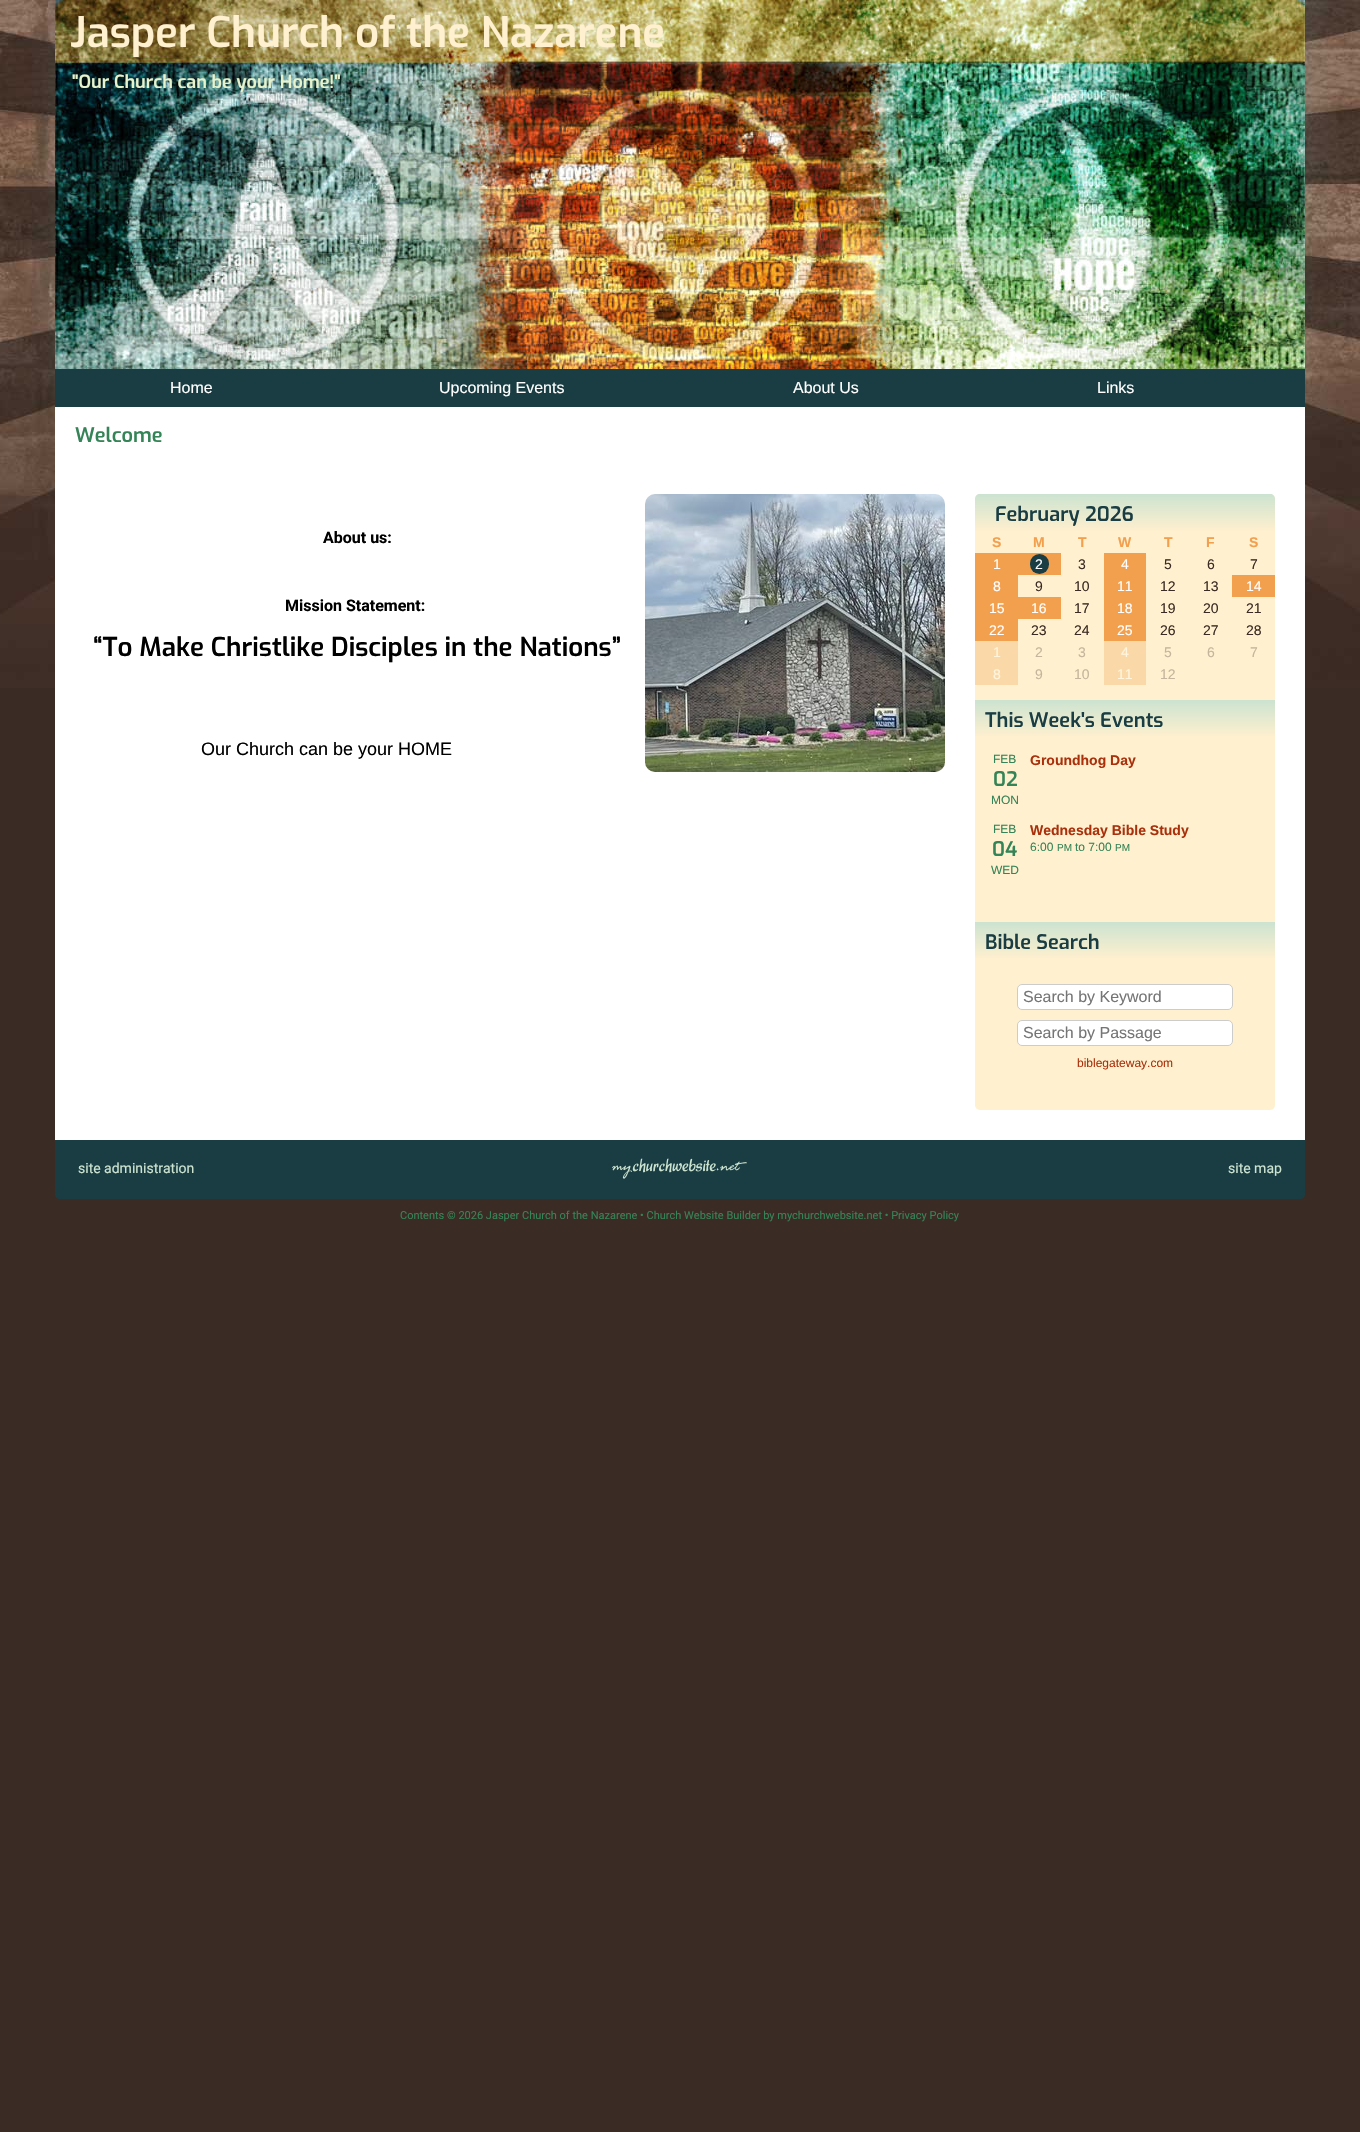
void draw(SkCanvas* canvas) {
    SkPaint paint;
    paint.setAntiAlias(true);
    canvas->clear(0xFF3A2C24);
    canvas->drawImageRect(SkImages::DeferredFromEncodedData(SkData::MakeFromFileName("img1.png")), SkRect::MakeXYWH(0, 0, 1360, 688), SkSamplingOptions());
    canvas->drawImageRect(SkImages::DeferredFromEncodedData(SkData::MakeFromFileName("img2.png")), SkRect::MakeXYWH(55, 0, 1250, 369), SkSamplingOptions());
    SkFont font1(fontMgr->matchFamilyStyle("Exo", SkFontStyle(600, SkFontStyle::kNormal_Width, SkFontStyle::kUpright_Slant)), 42);
    font1.setSubpixel(true);
    paint.setColor(0xFFFFF0CF);
    canvas->drawString("Jasper Church of the Nazarene", 70, 47, font1, paint);
    SkFont font2(fontMgr->matchFamilyStyle("Exo", SkFontStyle(600, SkFontStyle::kNormal_Width, SkFontStyle::kUpright_Slant)), 18);
    font2.setSubpixel(true);
    paint.setColor(0xFFE7F3CD);
    canvas->drawString("\"Our Church can be your Home!\"", 72, 88, font2, paint);
    paint.setColor(0xFF1A3D43);
    canvas->drawRect(SkRect::MakeXYWH(55, 369, 1250, 38), paint);
    SkFont font3(fontMgr->matchFamilyStyle("Liberation Sans", SkFontStyle::Normal()), 16);
    font3.setSubpixel(true);
    paint.setColor(0xFFFFFFFF);
    canvas->drawString("Home", 170, 393, font3, paint);
    canvas->drawString("Upcoming Events", 439, 393, font3, paint);
    canvas->drawString("About Us", 793, 393, font3, paint);
    canvas->drawString("Links", 1097, 393, font3, paint);
    canvas->drawRect(SkRect::MakeXYWH(55, 407, 1250, 733), paint);
    SkFont font4(fontMgr->matchFamilyStyle("Exo", SkFontStyle(600, SkFontStyle::kNormal_Width, SkFontStyle::kUpright_Slant)), 20);
    font4.setSubpixel(true);
    paint.setColor(0xFF358457);
    canvas->drawString("Welcome", 75, 442, font4, paint);
    SkFont font5(fontMgr->matchFamilyStyle("Roboto", SkFontStyle::Bold()), 16);
    font5.setSubpixel(true);
    paint.setColor(0xFF000000);
    canvas->drawString("About us:", 323, 543, font5, paint);
    canvas->drawImageRect(SkImages::DeferredFromEncodedData(SkData::MakeFromFileName("img3.png")), SkRect::MakeXYWH(645, 494, 300, 278), SkSamplingOptions());
    canvas->drawString("Mission Statement:", 285, 611, font5, paint);
    SkFont font6(fontMgr->matchFamilyStyle("Exo", SkFontStyle(600, SkFontStyle::kNormal_Width, SkFontStyle::kUpright_Slant)), 26);
    font6.setSubpixel(true);
    canvas->drawString("“To Make Christlike Disciples in the Nations”", 93, 656, font6, paint);
    SkFont font7(fontMgr->matchFamilyStyle("Liberation Sans", SkFontStyle::Normal()), 18);
    font7.setSubpixel(true);
    canvas->drawString("Our Church can be your HOME", 201, 755, font7, paint);
    paint.setColor(0xFFFFF0CF);
    canvas->drawRoundRect(SkRect::MakeXYWH(975, 494, 300, 616), 5, 5, paint);
    {
        const SkColor colors[] = {0xFFCCE3D0, 0x03CCE3D0};
        const float stops[] = {0, 1};
        const SkPoint ends[] = {{1125, 494}, {1125, 531}};
        paint.setShader(SkGradientShader::MakeLinear(ends, colors, stops, 2, SkTileMode::kClamp));
        paint.setAlpha(255);
    }
    canvas->drawPath(SkPathBuilder().moveTo(980, 494).lineTo(1270, 494).cubicTo(1273, 494, 1275, 496, 1275, 499).lineTo(1275, 531).lineTo(975, 531).lineTo(975, 499).cubicTo(975, 496, 977, 494, 980, 494).close().detach(), paint);
    paint.setShader(nullptr);
    paint.setColor(0xFF1A3D43);
    canvas->drawString("February 2026", 995, 521, font4, paint);
    SkFont font8(fontMgr->matchFamilyStyle("Liberation Sans", SkFontStyle::Bold()), 14);
    font8.setSubpixel(true);
    paint.setColor(0xFFF29F4E);
    canvas->drawString("S", 992, 547, font8, paint);
    canvas->drawString("M", 1033, 547, font8, paint);
    canvas->drawString("T", 1078, 547, font8, paint);
    canvas->drawString("W", 1118, 547, font8, paint);
    canvas->drawString("T", 1164, 547, font8, paint);
    canvas->drawString("F", 1206, 547, font8, paint);
    canvas->drawString("S", 1249, 547, font8, paint);
    canvas->drawRect(SkRect::MakeXYWH(975, 553, 86, 22), paint);
    SkFont font9(fontMgr->matchFamilyStyle("Liberation Sans", SkFontStyle::Normal()), 14);
    font9.setSubpixel(true);
    paint.setColor(0xFFFFFFFF);
    canvas->drawString("1", 993, 569, font9, paint);
    paint.setColor(0xFF1A3D43);
    canvas->drawRoundRect(SkRect::MakeXYWH(1030, 554, 19, 20), 9.5f, 9.5f, paint);
    paint.setColor(0xFFFFFFFF);
    canvas->drawString("2", 1035, 569, font9, paint);
    paint.setColor(0xFF3A2C24);
    canvas->drawString("3", 1078, 569, font9, paint);
    paint.setColor(0xFFF29F4E);
    canvas->drawRect(SkRect::MakeXYWH(1104, 553, 42, 88), paint);
    paint.setColor(0xFFFFFFFF);
    canvas->drawString("4", 1121, 569, font9, paint);
    paint.setColor(0xFF3A2C24);
    canvas->drawString("5", 1164, 569, font9, paint);
    canvas->drawString("6", 1207, 569, font9, paint);
    canvas->drawString("7", 1250, 569, font9, paint);
    paint.setColor(0xFFF29F4E);
    canvas->drawRect(SkRect::MakeXYWH(975, 575, 43, 66), paint);
    paint.setColor(0xFFFFFFFF);
    canvas->drawString("8", 993, 591, font9, paint);
    paint.setColor(0xFF3A2C24);
    canvas->drawString("9", 1035, 591, font9, paint);
    canvas->drawString("10", 1074, 591, font9, paint);
    paint.setColor(0xFFFFFFFF);
    canvas->drawString("11", 1117, 591, font9, paint);
    paint.setColor(0xFF3A2C24);
    canvas->drawString("12", 1160, 591, font9, paint);
    canvas->drawString("13", 1203, 591, font9, paint);
    paint.setColor(0xFFF29F4E);
    canvas->drawRect(SkRect::MakeXYWH(1232, 575, 43, 22), paint);
    paint.setColor(0xFFFFFFFF);
    canvas->drawString("14", 1246, 591, font9, paint);
    canvas->drawString("15", 989, 613, font9, paint);
    paint.setColor(0xFFF29F4E);
    canvas->drawRect(SkRect::MakeXYWH(1018, 597, 43, 22), paint);
    paint.setColor(0xFFFFFFFF);
    canvas->drawString("16", 1031, 613, font9, paint);
    paint.setColor(0xFF3A2C24);
    canvas->drawString("17", 1074, 613, font9, paint);
    paint.setColor(0xFFFFFFFF);
    canvas->drawString("18", 1117, 613, font9, paint);
    paint.setColor(0xFF3A2C24);
    canvas->drawString("19", 1160, 613, font9, paint);
    canvas->drawString("20", 1203, 613, font9, paint);
    canvas->drawString("21", 1246, 613, font9, paint);
    paint.setColor(0xFFFFFFFF);
    canvas->drawString("22", 989, 635, font9, paint);
    paint.setColor(0xFF3A2C24);
    canvas->drawString("23", 1031, 635, font9, paint);
    canvas->drawString("24", 1074, 635, font9, paint);
    paint.setColor(0xFFFFFFFF);
    canvas->drawString("25", 1117, 635, font9, paint);
    paint.setColor(0xFF3A2C24);
    canvas->drawString("26", 1160, 635, font9, paint);
    canvas->drawString("27", 1203, 635, font9, paint);
    canvas->drawString("28", 1246, 635, font9, paint);
    paint.setColor(0xFFFBD8A8);
    canvas->drawRect(SkRect::MakeXYWH(975, 641, 43, 44), paint);
    paint.setColor(0xFFFFF5DD);
    canvas->drawString("1", 993, 657, font9, paint);
    paint.setColor(0xFFC4B59C);
    canvas->drawString("2", 1035, 657, font9, paint);
    canvas->drawString("3", 1078, 657, font9, paint);
    paint.setColor(0xFFFBD8A8);
    canvas->drawRect(SkRect::MakeXYWH(1104, 641, 42, 44), paint);
    paint.setColor(0xFFFFF5DD);
    canvas->drawString("4", 1121, 657, font9, paint);
    paint.setColor(0xFFC4B59C);
    canvas->drawString("5", 1164, 657, font9, paint);
    canvas->drawString("6", 1207, 657, font9, paint);
    canvas->drawString("7", 1250, 657, font9, paint);
    paint.setColor(0xFFFFF5DD);
    canvas->drawString("8", 993, 679, font9, paint);
    paint.setColor(0xFFC4B59C);
    canvas->drawString("9", 1035, 679, font9, paint);
    canvas->drawString("10", 1074, 679, font9, paint);
    paint.setColor(0xFFFFF5DD);
    canvas->drawString("11", 1117, 679, font9, paint);
    paint.setColor(0xFFC4B59C);
    canvas->drawString("12", 1160, 679, font9, paint);
    {
        const SkColor colors[] = {0xFFCCE3D0, 0xFFFEF0CF};
        const float stops[] = {0, 1};
        const SkPoint ends[] = {{1125, 700}, {1125, 737}};
        paint.setShader(SkGradientShader::MakeLinear(ends, colors, stops, 2, SkTileMode::kClamp));
        paint.setAlpha(255);
    }
    canvas->drawRect(SkRect::MakeXYWH(975, 700, 300, 36), paint);
    paint.setShader(nullptr);
    paint.setColor(0xFF1A3D43);
    canvas->drawString("This Week's Events", 985, 727, font4, paint);
    SkFont font10(fontMgr->matchFamilyStyle("Liberation Sans", SkFontStyle::Normal()), 12);
    font10.setSubpixel(true);
    paint.setColor(0xFF358457);
    canvas->drawString("FEB", 993, 763, font10, paint);
    canvas->drawString("02", 993, 786, font4, paint);
    canvas->drawString("MON", 991, 804, font10, paint);
    paint.setColor(0xFFAA300B);
    canvas->drawString("Groundhog Day", 1030, 765, font8, paint);
    paint.setColor(0xFF358457);
    canvas->drawString("FEB", 993, 833, font10, paint);
    canvas->drawString("04", 992, 856, font4, paint);
    canvas->drawString("WED", 991, 874, font10, paint);
    paint.setColor(0xFFAA300B);
    canvas->drawString("Wednesday Bible Study", 1030, 835, font8, paint);
    paint.setColor(0xFF358457);
    canvas->drawString("6:00", 1030, 851, font10, paint);
    SkFont font11(fontMgr->matchFamilyStyle("Liberation Sans", SkFontStyle::Normal()), 10);
    font11.setSubpixel(true);
    canvas->drawString("PM", 1057, 851, font11, paint);
    canvas->drawString("to 7:00", 1075, 851, font10, paint);
    canvas->drawString("PM", 1115, 851, font11, paint);
    {
        const SkColor colors[] = {0xFFCCE3D0, 0xFFFEF0CF};
        const float stops[] = {0, 1};
        const SkPoint ends[] = {{1125, 922}, {1125, 959}};
        paint.setShader(SkGradientShader::MakeLinear(ends, colors, stops, 2, SkTileMode::kClamp));
        paint.setAlpha(255);
    }
    canvas->drawRect(SkRect::MakeXYWH(975, 922, 300, 36), paint);
    paint.setShader(nullptr);
    paint.setColor(0xFF1A3D43);
    canvas->drawString("Bible Search", 985, 949, font4, paint);
    paint.setColor(0xFFFFFFFF);
    canvas->drawRoundRect(SkRect::MakeXYWH(1017.5f, 984.5f, 215, 25), 4.5f, 4.5f, paint);
    paint.setStyle(SkPaint::kStroke_Style);
    paint.setStrokeWidth(1);
    paint.setColor(0xFFCCCCCC);
    canvas->drawRoundRect(SkRect::MakeXYWH(1017.5f, 984.5f, 215, 25), 4.5f, 4.5f, paint);
    paint.setStyle(SkPaint::kFill_Style);
    paint.setColor(0xFF757575);
    canvas->drawString("Search by Keyword", 1023, 1002, font3, paint);
    paint.setColor(0xFFFFFFFF);
    canvas->drawRoundRect(SkRect::MakeXYWH(1017.5f, 1020.5f, 215, 25), 4.5f, 4.5f, paint);
    paint.setStyle(SkPaint::kStroke_Style);
    paint.setColor(0xFFCCCCCC);
    canvas->drawRoundRect(SkRect::MakeXYWH(1017.5f, 1020.5f, 215, 25), 4.5f, 4.5f, paint);
    paint.setStyle(SkPaint::kFill_Style);
    paint.setColor(0xFF757575);
    canvas->drawString("Search by Passage", 1023, 1038, font3, paint);
    paint.setColor(0xFFAA300B);
    canvas->drawString("biblegateway.com", 1077, 1067, font10, paint);
    paint.setColor(0xFF1A3D43);
    canvas->drawPath(SkPathBuilder().moveTo(55, 1140).lineTo(1305, 1140).lineTo(1305, 1194).cubicTo(1305, 1197, 1303, 1199, 1300, 1199).lineTo(60, 1199).cubicTo(57, 1199, 55, 1197, 55, 1194).close().detach(), paint);
    SkFont font12(fontMgr->matchFamilyStyle("Roboto", SkFontStyle::Normal()), 14);
    font12.setSubpixel(true);
    paint.setColor(0xFFCCE3D0);
    canvas->drawString("site administration", 78, 1173, font12, paint);
    canvas->drawImageRect(SkImages::DeferredFromEncodedData(SkData::MakeFromFileName("img4.png")), SkRect::MakeXYWH(612, 1158, 135, 21), SkSamplingOptions());
    canvas->drawString("site map", 1228, 1173, font12, paint);
    SkFont font13(fontMgr->matchFamilyStyle("Roboto", SkFontStyle::Normal()), 11);
    font13.setSubpixel(true);
    paint.setColor(0xFF358457);
    canvas->drawString("Contents © 2026 Jasper Church of the Nazarene • Church Website Builder by mychurchwebsite.net • Privacy Policy", 400, 1219, font13, paint);
}
